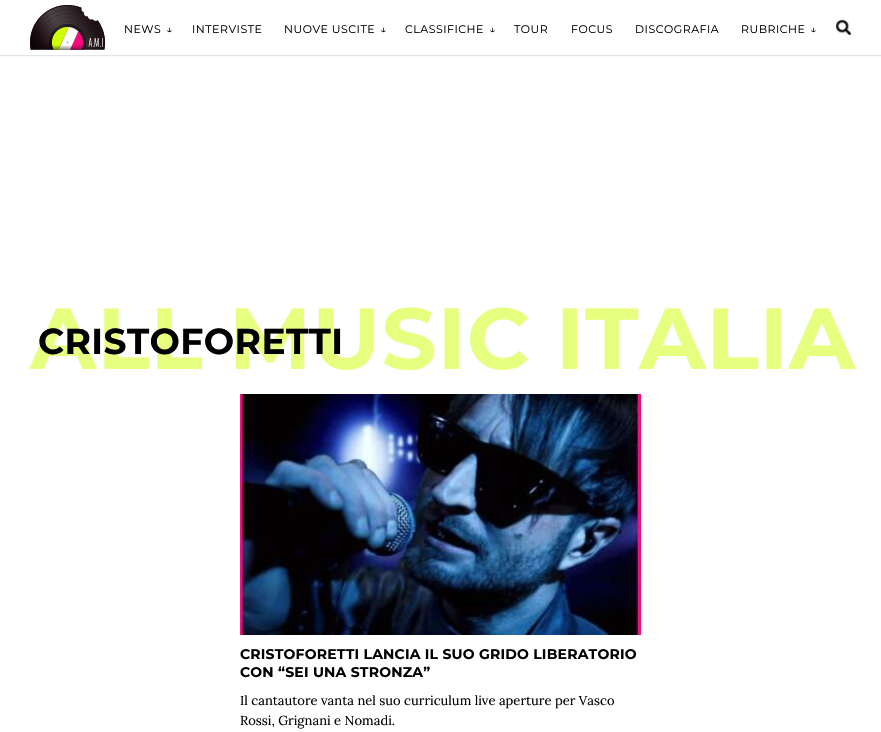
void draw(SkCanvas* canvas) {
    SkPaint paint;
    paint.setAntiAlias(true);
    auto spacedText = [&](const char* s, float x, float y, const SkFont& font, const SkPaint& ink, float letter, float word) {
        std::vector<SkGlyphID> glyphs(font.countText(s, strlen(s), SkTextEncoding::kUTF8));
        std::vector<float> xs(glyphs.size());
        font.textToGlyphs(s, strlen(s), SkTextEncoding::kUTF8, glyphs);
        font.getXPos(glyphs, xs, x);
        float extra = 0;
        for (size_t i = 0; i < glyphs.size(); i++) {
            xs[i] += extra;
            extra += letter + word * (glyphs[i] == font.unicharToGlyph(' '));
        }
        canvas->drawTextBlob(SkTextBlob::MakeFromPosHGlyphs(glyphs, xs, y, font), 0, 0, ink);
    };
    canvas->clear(0xFFFFFFFF);
    canvas->save();
    canvas->clipRect(SkRect::MakeXYWH(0, 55, 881, 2));
    paint.setColor(0xFFE5E5E5);
    paint.setMaskFilter(SkMaskFilter::MakeBlur(kNormal_SkBlurStyle, 0.5f));
    canvas->drawRect(SkRect::MakeXYWH(0, 1, 881, 55), paint);
    paint.setMaskFilter(nullptr);
    canvas->restore();
    canvas->drawImageRect(SkImages::DeferredFromEncodedData(SkData::MakeFromFileName("img1.png")), SkRect::MakeXYWH(30, 5, 75, 45), SkSamplingOptions());
    SkFont font1(fontMgr->matchFamilyStyle("Montserrat", SkFontStyle::Normal()), 11);
    font1.setSubpixel(true);
    paint.setColor(0xFF000000);
    spacedText("NEWS", 124, 33, font1, paint, 0.5f, 0);
    spacedText("↓", 166, 33, font1, paint, 0.5f, 0);
    spacedText("INTERVISTE", 192, 33, font1, paint, 0.5f, 0);
    spacedText("NUOVE USCITE", 284, 33, font1, paint, 0.5f, 0);
    spacedText("↓", 380, 33, font1, paint, 0.5f, 0);
    spacedText("CLASSIFICHE", 405, 33, font1, paint, 0.5f, 0);
    spacedText("↓", 489, 33, font1, paint, 0.5f, 0);
    spacedText("TOUR", 514, 33, font1, paint, 0.5f, 0);
    spacedText("FOCUS", 571, 33, font1, paint, 0.5f, 0);
    spacedText("DISCOGRAFIA", 635, 33, font1, paint, 0.5f, 0);
    spacedText("RUBRICHE", 741, 33, font1, paint, 0.5f, 0);
    spacedText("↓", 810, 33, font1, paint, 0.5f, 0);
    canvas->drawImageRect(SkImages::DeferredFromEncodedData(SkData::MakeFromFileName("img2.png")), SkRect::MakeXYWH(835, 19, 16, 16), SkSamplingOptions());
    SkFont font2(fontMgr->matchFamilyStyle("Montserrat", SkFontStyle::Bold()), 86.5f);
    font2.setSubpixel(true);
    paint.setColor(0xFFE7FF7F);
    spacedText("ALL MUSIC ITALIA", 30, 369, font2, paint, 0.9f, 0);
    SkFont font3(fontMgr->matchFamilyStyle("Montserrat", SkFontStyle::Bold()), 36);
    font3.setSubpixel(true);
    paint.setColor(0xFF000000);
    spacedText("CRISTOFORETTI", 38, 354, font3, paint, 0.4f, 0);
    canvas->drawImageRect(SkImages::DeferredFromEncodedData(SkData::MakeFromFileName("img3.png")), SkRect::MakeXYWH(240, 394, 401, 241), SkSamplingOptions());
    SkFont font4(fontMgr->matchFamilyStyle("Montserrat", SkFontStyle::Bold()), 14);
    font4.setSubpixel(true);
    spacedText("CRISTOFORETTI LANCIA IL SUO GRIDO LIBERATORIO", 240, 659, font4, paint, 0.2f, 0);
    spacedText("CON “SEI UNA STRONZA”", 240, 677, font4, paint, 0.2f, 0);
    SkFont font5(fontMgr->matchFamilyStyle("Lora", SkFontStyle::Normal()), 13);
    font5.setSubpixel(true);
    canvas->drawString("Il cantautore vanta nel suo curriculum live aperture per Vasco", 240, 705, font5, paint);
    canvas->drawString("Rossi, Grignani e Nomadi.", 240, 725, font5, paint);
}
